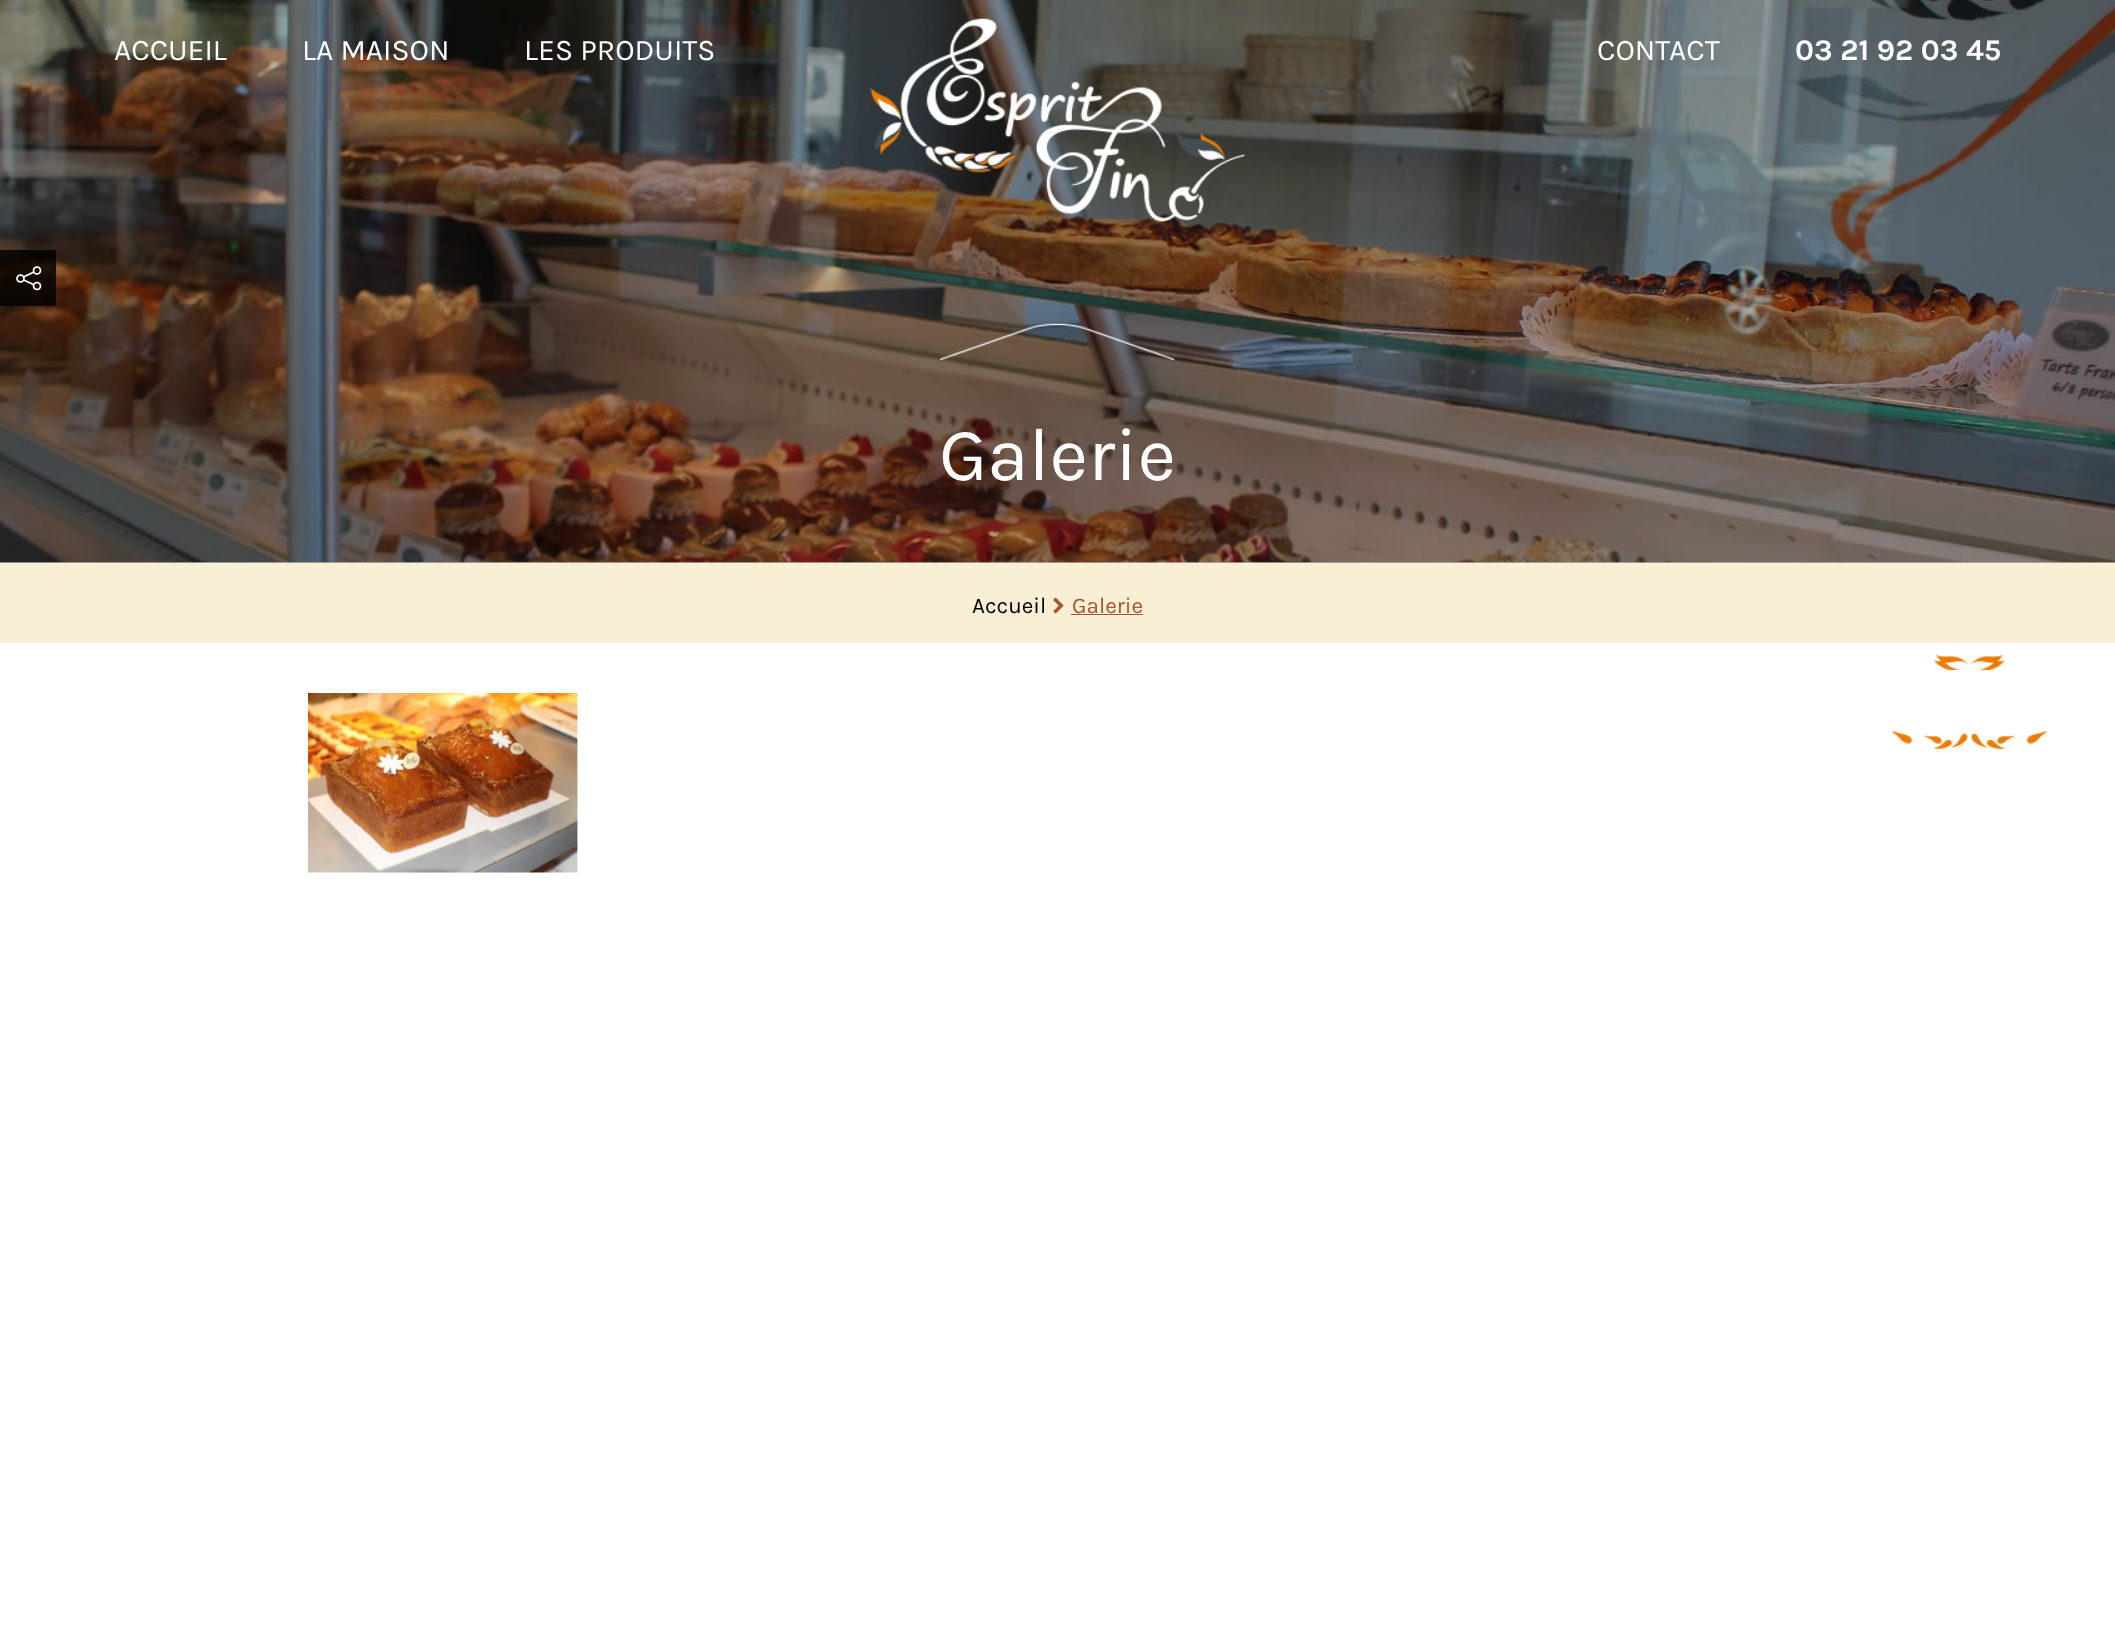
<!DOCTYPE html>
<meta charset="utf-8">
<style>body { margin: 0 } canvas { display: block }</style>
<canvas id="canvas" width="2115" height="1649"></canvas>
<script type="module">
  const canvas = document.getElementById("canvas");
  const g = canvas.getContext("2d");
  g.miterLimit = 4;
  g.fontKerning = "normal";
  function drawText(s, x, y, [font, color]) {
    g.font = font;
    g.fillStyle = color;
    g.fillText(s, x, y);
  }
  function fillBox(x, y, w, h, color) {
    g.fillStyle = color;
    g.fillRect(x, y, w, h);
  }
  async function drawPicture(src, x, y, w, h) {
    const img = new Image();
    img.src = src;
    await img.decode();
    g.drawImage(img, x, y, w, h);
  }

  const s1 = ["30px Karla", "#FFFFFF"];
  const s2 = ["bold 30px Karla", "#FFFFFF"];
  const s3 = ["75px Karla", "#FFFFFF"];
  const s4 = ["22.5px Karla", "#000000"];
  const s5 = ["22.5px Karla", "#A75533"];

  fillBox(0, 0, 2115, 1649, "#FFFFFF");
  fillBox(0, 562, 2115, 1, "#B3B3B3");
  await drawPicture("pic3.png", 0, 0, 2115, 563);
  await drawPicture("pic1.png", 870, 18, 375, 204);
  drawText("ACCUEIL", 114, 60, s1);
  drawText("LA MAISON", 302, 60, s1);
  drawText("LES PRODUITS", 524, 60, s1);
  drawText("CONTACT", 1597, 60, s1);
  drawText("03 21 92 03 45", 1795, 60, s2);
  fillBox(0, 250, 56, 56, "rgba(0, 0, 0, 0.8)");
  await drawPicture("pic2.png", 16, 266, 26, 25);
  await drawPicture("pic4.png", 940, 323, 234, 37);
  drawText("Galerie", 939, 480, s3);
  fillBox(0, 563, 2115, 80, "#F8EFD5");
  drawText("Accueil", 972, 613, s4);
  await drawPicture("pic5.png", 1053, 597, 11, 17);
  drawText("Galerie", 1072, 613, s5);
  fillBox(1071, 614, 72, 1, "#A75533");
  await drawPicture("pic6.png", 308, 693, 270, 180);
  await drawPicture("pic7.png", 1933, 655, 72, 15);
  await drawPicture("pic8.png", 1892, 731, 155, 18);
</script>
